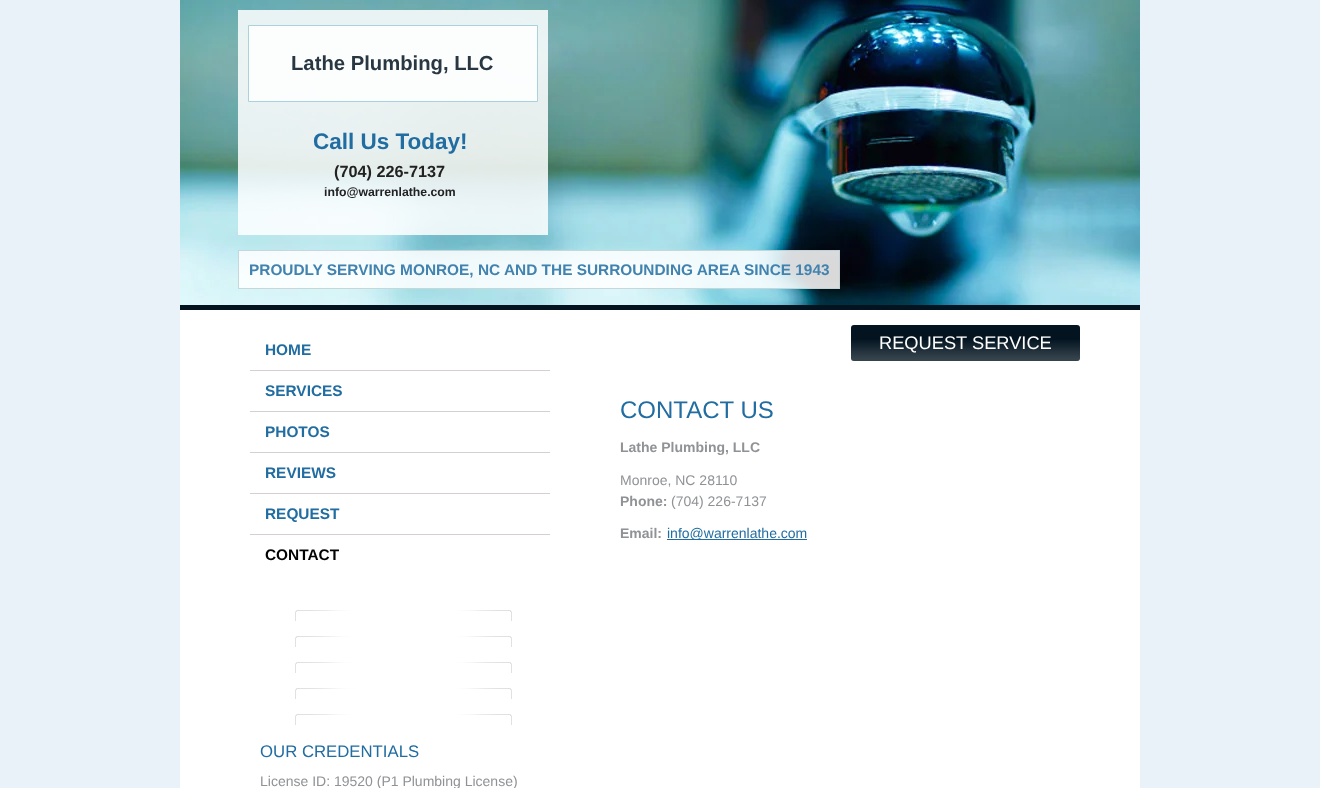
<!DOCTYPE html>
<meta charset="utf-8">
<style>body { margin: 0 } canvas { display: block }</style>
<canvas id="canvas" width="1320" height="788"></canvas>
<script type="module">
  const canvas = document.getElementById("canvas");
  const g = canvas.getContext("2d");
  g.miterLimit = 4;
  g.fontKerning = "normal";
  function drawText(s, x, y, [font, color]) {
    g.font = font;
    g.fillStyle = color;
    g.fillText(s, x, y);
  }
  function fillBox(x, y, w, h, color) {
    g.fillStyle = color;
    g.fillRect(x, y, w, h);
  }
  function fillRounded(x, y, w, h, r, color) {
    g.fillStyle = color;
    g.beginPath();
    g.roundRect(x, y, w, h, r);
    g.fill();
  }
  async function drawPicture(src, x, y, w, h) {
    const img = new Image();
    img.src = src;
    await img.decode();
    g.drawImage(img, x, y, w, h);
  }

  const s1 = ["bold 20.25px Liberation Sans", "#283741"];
  const s2 = ["bold 22.5px Liberation Sans", "#216DA1"];
  const s3 = ["bold 16.25px Liberation Sans", "#222222"];
  const s4 = ["bold 12.25px Liberation Sans", "#222222"];
  const s5 = ["bold 15.4px Liberation Sans", "#4182AF"];
  const s6 = ["18.25px Liberation Sans", "#FFFFFF"];
  const s7 = ["bold 15.4px Liberation Sans", "#216DA1"];
  const s8 = ["bold 15.4px Liberation Sans", "#020202"];
  const s9 = ["16.75px Liberation Sans", "#216DA1"];
  const s10 = ["14px Liberation Sans", "#909295"];
  const s11 = ["24px Liberation Sans", "#216DA1"];
  const s12 = ["bold 14px Liberation Sans", "#909295"];
  const s13 = ["14px Liberation Sans", "#216DA1"];

  fillBox(0, 0, 1320, 788, "#E9F2F9");
  fillBox(180, 310, 960, 478, "#FFFFFF");
  fillBox(180, 305, 960, 5, "#031420");
  await drawPicture("pic1.png", 180, 0, 960, 305);
  fillBox(238, 10, 310, 225, "rgba(255, 255, 255, 0.85)");
  g.beginPath();
  g.rect(248.5, 25.5, 289, 76);
  g.fill();
  g.strokeStyle = "#AAD1DE";
  g.stroke();
  drawText("Lathe Plumbing, LLC", 291, 70, s1);
  drawText("Call Us Today!", 313, 149, s2);
  drawText("(704) 226-7137", 334, 177, s3);
  drawText("info@warrenlathe.com", 324, 196, s4);
  fillBox(238, 250, 602, 39, "rgba(255, 255, 255, 0.85)");
  g.strokeStyle = "rgba(189, 208, 211, 0.85)";
  g.strokeRect(238.5, 250.5, 601, 38);
  drawText("PROUDLY SERVING MONROE, NC", 249, 275, s5);
  drawText("AND THE SURROUNDING AREA SINCE 1943", 504, 275, s5);
  fillRounded(851, 325, 229, 36, 3, "#031420");
  await drawPicture("pic2.png", 851, 340, 229, 21);
  drawText("REQUEST SERVICE", 879, 349, s6);
  drawText("HOME", 265, 355, s7);
  fillBox(250, 370, 300, 1, "#D4D0D1");
  drawText("SERVICES", 265, 396, s7);
  fillBox(250, 411, 300, 1, "#D4D0D1");
  drawText("PHOTOS", 265, 437, s7);
  fillBox(250, 452, 300, 1, "#D4D0D1");
  drawText("REVIEWS", 265, 478, s7);
  fillBox(250, 493, 300, 1, "#D4D0D1");
  drawText("REQUEST", 265, 519, s7);
  fillBox(250, 534, 300, 1, "#D4D0D1");
  drawText("CONTACT", 265, 560, s8);
  await drawPicture("pic3.png", 295, 610, 217, 11);
  await drawPicture("pic3.png", 295, 636, 217, 11);
  await drawPicture("pic3.png", 295, 662, 217, 11);
  await drawPicture("pic3.png", 295, 688, 217, 11);
  await drawPicture("pic3.png", 295, 714, 217, 11);
  drawText("OUR CREDENTIALS", 260, 757, s9);
  drawText("License ID: 19520 (P1 Plumbing License)", 260, 786, s10);
  drawText("CONTACT US", 620, 418, s11);
  drawText("Lathe Plumbing, LLC", 620, 452, s12);
  drawText("Monroe, NC 28110", 620, 485, s10);
  drawText("Phone:", 620, 506, s12);
  drawText("(704) 226-7137", 671, 506, s10);
  drawText("Email:", 620, 538, s12);
  fillBox(667, 539, 140, 1, "#216DA1");
  drawText("info@warrenlathe.com", 667, 538, s13);
</script>
